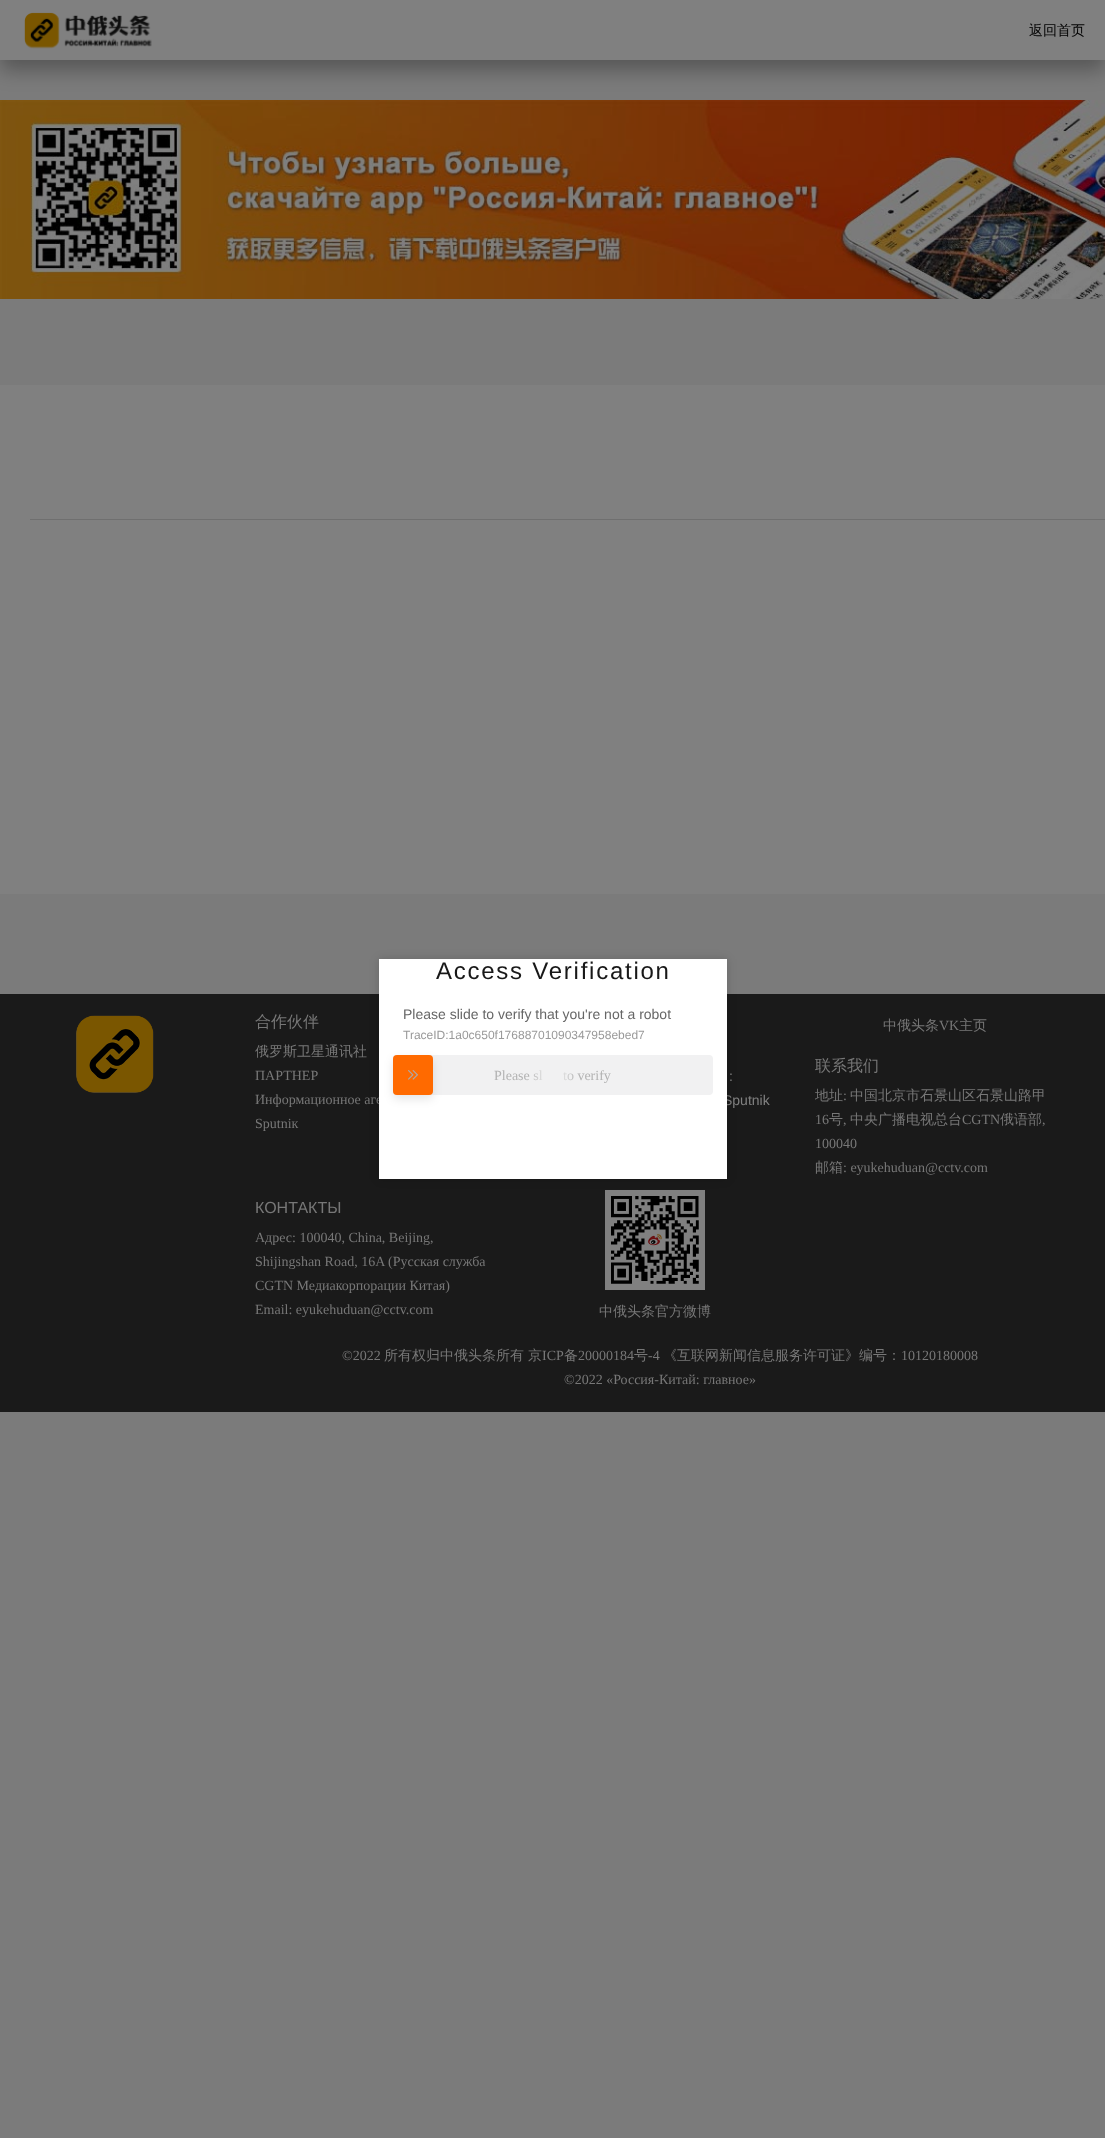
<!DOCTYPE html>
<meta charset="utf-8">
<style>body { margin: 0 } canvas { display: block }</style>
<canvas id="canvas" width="1105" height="2138"></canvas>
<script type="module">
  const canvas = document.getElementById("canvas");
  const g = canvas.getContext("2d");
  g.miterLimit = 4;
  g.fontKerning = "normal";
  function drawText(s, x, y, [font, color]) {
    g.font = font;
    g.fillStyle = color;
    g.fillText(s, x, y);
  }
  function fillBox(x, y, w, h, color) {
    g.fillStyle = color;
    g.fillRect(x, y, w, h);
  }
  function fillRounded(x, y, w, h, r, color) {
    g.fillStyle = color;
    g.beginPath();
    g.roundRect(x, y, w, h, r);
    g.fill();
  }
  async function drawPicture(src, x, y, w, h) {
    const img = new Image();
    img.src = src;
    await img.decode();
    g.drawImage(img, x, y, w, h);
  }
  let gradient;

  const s1 = ["500 14px WenQuanYi Zen Hei", "#000000"];
  const s2 = ["500 16px WenQuanYi Zen Hei", "#777777"];
  const s3 = ["500 14px WenQuanYi Zen Hei", "#777777"];
  const s4 = ["14px Liberation Serif", "#777777"];
  const s5 = ["14px Liberation Sans", "#808080"];
  const s6 = ["16px Liberation Sans", "#777777"];
  const s7 = ["24px Liberation Sans", "#181818"];
  const s8 = ["14px Liberation Sans", "#666666"];
  const s9 = ["12px Liberation Sans", "#999999"];

  fillBox(0, 0, 1105, 2138, "#7B7B7B");
  await drawPicture("pic2.png", 0, 100, 1105, 199);
  g.fillStyle = "rgba(0, 0, 0, 0.3)";
  g.filter = "blur(10px)";
  g.beginPath();
  g.rect(0, 10, 1105, 60);
  g.fill();
  g.filter = "none";
  fillBox(0, 0, 1105, 60, "#808080");
  await drawPicture("pic1.png", 24, 12, 128, 37);
  drawText("返回首页", 1029, 35, s1);
  fillBox(0, 385, 1105, 509, "#808080");
  fillBox(30, 519, 1075, 1, "#6F6F6F");
  fillBox(0, 994, 1105, 418, "#1A1A1A");
  await drawPicture("pic3.png", 76, 1015, 78, 78);
  drawText("合作伙伴", 255, 1027, s2);
  drawText("俄罗斯卫星通讯社", 255, 1056, s3);
  drawText("ПАРТНЕР", 255, 1080, s4);
  drawText("Информационное аге", 255, 1104, s4);
  drawText("Sputniк", 255, 1128, s4);
  drawText("中俄头条", 883, 1030, s3);
  drawText("VK", 939, 1030, s4);
  drawText("主页", 959, 1030, s3);
  drawText(":", 729, 1081, s5);
  drawText("Sputnik", 723, 1105, s5);
  drawText("联系我们", 815, 1071, s2);
  drawText("地址", 815, 1100, s3);
  drawText(":", 843, 1100, s4);
  drawText("中国北京市石景山区石景山路甲", 850, 1100, s3);
  drawText("16", 815, 1124, s4);
  drawText("号", 829, 1124, s3);
  drawText(",", 843, 1124, s4);
  drawText("中央广播电视总台", 850, 1124, s3);
  drawText("CGTN", 962, 1124, s4);
  drawText("俄语部", 1000, 1124, s3);
  drawText(",", 1042, 1124, s4);
  drawText("100040", 815, 1148, s4);
  drawText("邮箱", 815, 1172, s3);
  drawText(": eyukehuduan@cctv.com", 843, 1172, s4);
  drawText("КОНТАКТЫ", 255, 1213, s6);
  drawText("Адрес: 100040, China, Beijing,", 255, 1242, s4);
  drawText("Shijingshan Road, 16A (Русская служба", 255, 1266, s4);
  drawText("СGTN Медиакорпорации Китая)", 255, 1290, s4);
  drawText("Email: eyukehuduan@cctv.com", 255, 1314, s4);
  await drawPicture("pic4.png", 605, 1190, 100, 100);
  drawText("中俄头条官方微博", 599, 1316, s3);
  drawText("©2022", 342, 1360, s4);
  drawText("所有权归中俄头条所有", 384, 1360, s3);
  drawText("京", 528, 1360, s3);
  drawText("ICP", 542, 1360, s4);
  drawText("备", 564, 1360, s3);
  drawText("20000184", 578, 1360, s4);
  drawText("号", 634, 1360, s3);
  drawText("-4", 648, 1360, s4);
  drawText("《互联网新闻信息服务许可证》编号：", 663, 1360, s3);
  drawText("10120180008", 901, 1360, s4);
  drawText("©2022 «Россия-Китай: главное»", 564, 1384, s4);
  g.fillStyle = "rgba(0, 0, 0, 0.15)";
  g.filter = "blur(5px)";
  g.beginPath();
  g.rect(379, 959, 348, 220);
  g.fill();
  g.filter = "none";
  fillBox(379, 959, 348, 220, "#FFFFFF");
  g.letterSpacing = "1.75px";
  drawText("Access Verification", 436, 979, s7);
  g.letterSpacing = "0px";
  drawText("Please slide to verify that you're not a robot", 403, 1019, s8);
  drawText("TraceID:1a0c650f17688701090347958ebed7", 403, 1039, s9);
  fillRounded(393, 1055, 320, 40, 4, "#F1F1F2");
  g.fillStyle = "rgba(0, 0, 0, 0.1)";
  g.filter = "blur(5px)";
  g.beginPath();
  g.roundRect(393, 1059, 40, 40, 4);
  g.fill();
  g.filter = "none";
  fillRounded(393, 1055, 40, 40, 4, "#FF6A00");
  await drawPicture("pic5.png", 408, 1070, 11, 10);
  g.font = "14px Liberation Serif";
  gradient = g.createLinearGradient(433, 1068, 673, 1068);
  gradient.addColorStop(0, "#B3B3B3");
  gradient.addColorStop(0.4, "#B3B3B3");
  gradient.addColorStop(0.5, "#FFFFFF");
  gradient.addColorStop(0.6, "#B3B3B3");
  gradient.addColorStop(1, "#B3B3B3");
  g.fillStyle = gradient;
  g.fillText("Please sl", 494, 1080);
  g.fillText("to verify", 563, 1080);
</script>
